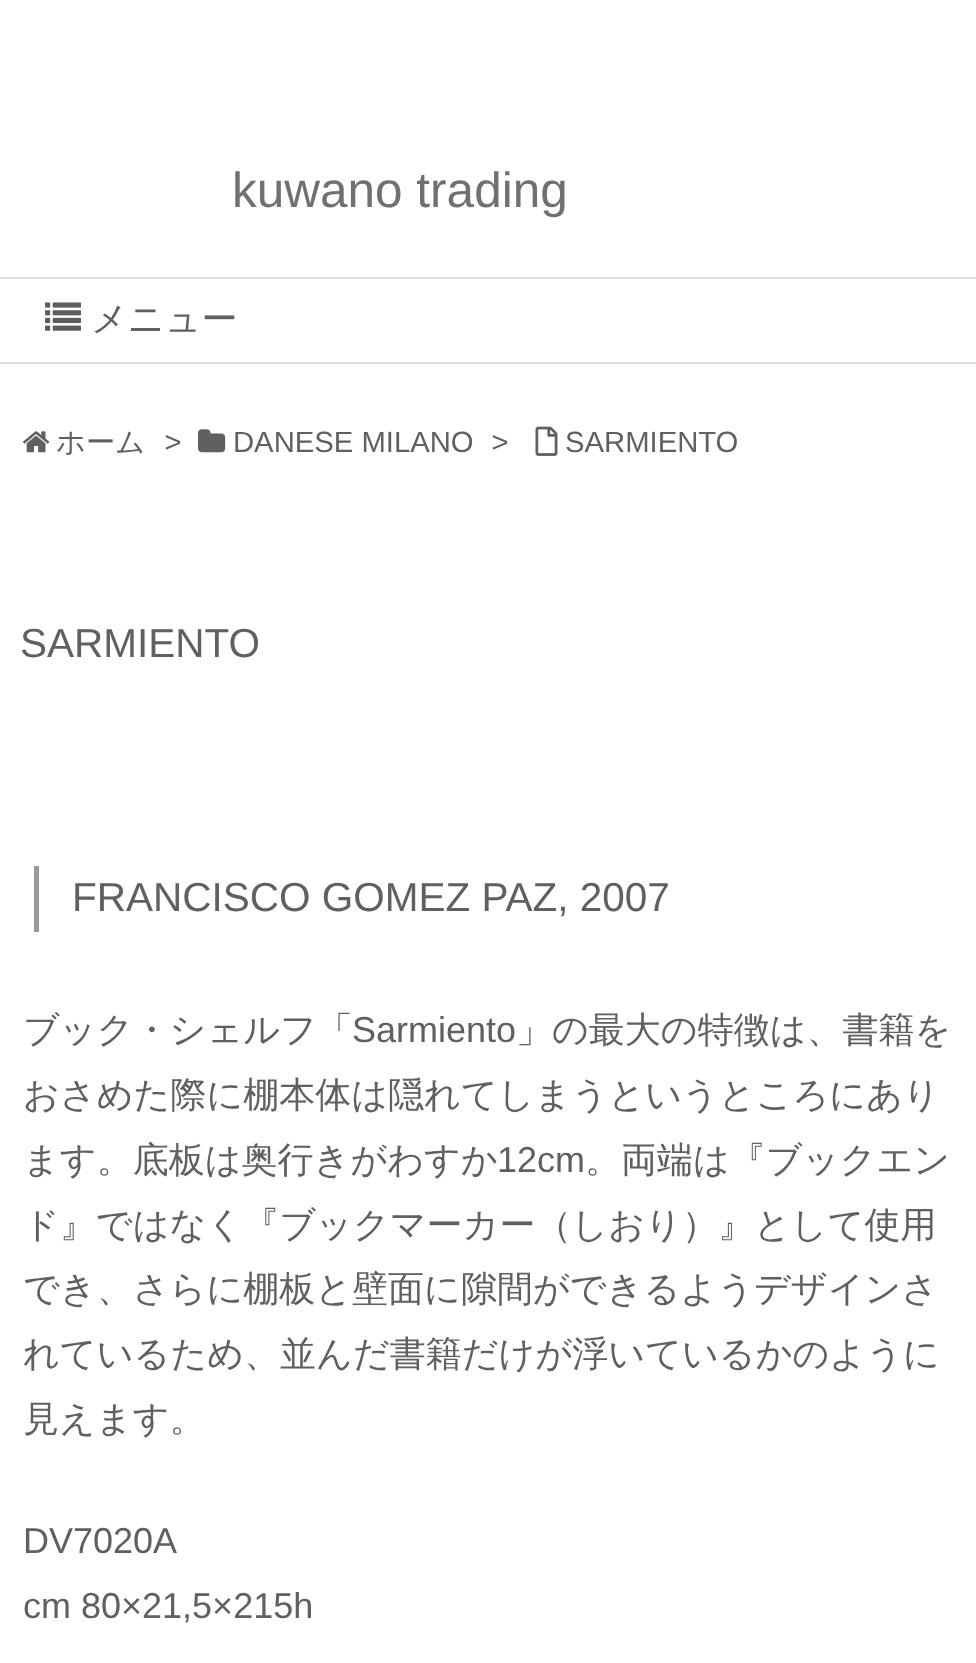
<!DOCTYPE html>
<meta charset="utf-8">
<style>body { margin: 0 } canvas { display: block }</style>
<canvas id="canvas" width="976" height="1663"></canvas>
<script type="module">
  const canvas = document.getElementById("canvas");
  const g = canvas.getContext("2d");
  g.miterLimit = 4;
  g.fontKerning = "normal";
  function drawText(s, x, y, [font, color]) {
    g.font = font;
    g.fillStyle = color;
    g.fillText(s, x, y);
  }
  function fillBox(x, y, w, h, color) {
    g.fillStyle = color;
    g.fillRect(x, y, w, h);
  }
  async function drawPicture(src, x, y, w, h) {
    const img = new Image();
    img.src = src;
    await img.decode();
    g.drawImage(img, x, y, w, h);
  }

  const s1 = ["49.5px Liberation Sans", "#707070"];
  const s2 = ["500 36px WenQuanYi Zen Hei", "#606060"];
  const s3 = ["500 29.25px WenQuanYi Zen Hei", "#606060"];
  const s4 = ["italic 29.25px Liberation Sans", "#606060"];
  const s5 = ["29.25px Liberation Sans", "#606060"];
  const s6 = ["40.5px Liberation Sans", "#606060"];
  const s7 = ["36px Liberation Sans", "#606060"];

  fillBox(0, 0, 976, 1663, "#FFFFFF");
  drawText("kuwano trading", 232, 207, s1);
  fillBox(0, 277, 976, 2, "#DDDDDD");
  fillBox(0, 362, 976, 2, "#DDDDDD");
  await drawPicture("pic1.png", 45, 302, 36, 29);
  drawText("メニュー", 91, 331, s2);
  await drawPicture("pic2.png", 23, 431, 27, 22);
  drawText("ホーム", 56, 452, s3);
  drawText(">", 164, 452, s4);
  await drawPicture("pic3.png", 198, 429, 28, 24);
  drawText("DANESE MILANO", 233, 452, s5);
  drawText(">", 491, 452, s4);
  await drawPicture("pic4.png", 535, 426, 23, 30);
  drawText("SARMIENTO", 565, 452, s5);
  drawText("SARMIENTO", 20, 657, s6);
  fillBox(34, 866, 5, 66, "#999999");
  drawText("FRANCISCO GOMEZ PAZ, 2007", 72, 911, s6);
  drawText("ブック・シェルフ「", 23, 1042, s2);
  drawText("Sarmiento", 352, 1042, s7);
  drawText("」の最大の特徴は、書籍を", 516, 1042, s2);
  drawText("おさめた際に棚本体は隠れてしまうというところにあり", 23, 1107, s2);
  drawText("ます。底板は奥行きがわすか", 23, 1172, s2);
  drawText("12cm", 497, 1172, s7);
  drawText("。両端は『ブックエン", 585, 1172, s2);
  drawText("ド』ではなく『ブックマーカー（しおり）』として使用", 23, 1237, s2);
  drawText("でき、さらに棚板と壁面に隙間ができるようデザインさ", 23, 1301, s2);
  drawText("れているため、並んだ書籍だけが浮いているかのように", 23, 1366, s2);
  drawText("見えます。", 23, 1431, s2);
  drawText("DV7020A", 23, 1553, s7);
  drawText("cm 80×21,5×215h", 23, 1618, s7);
</script>
